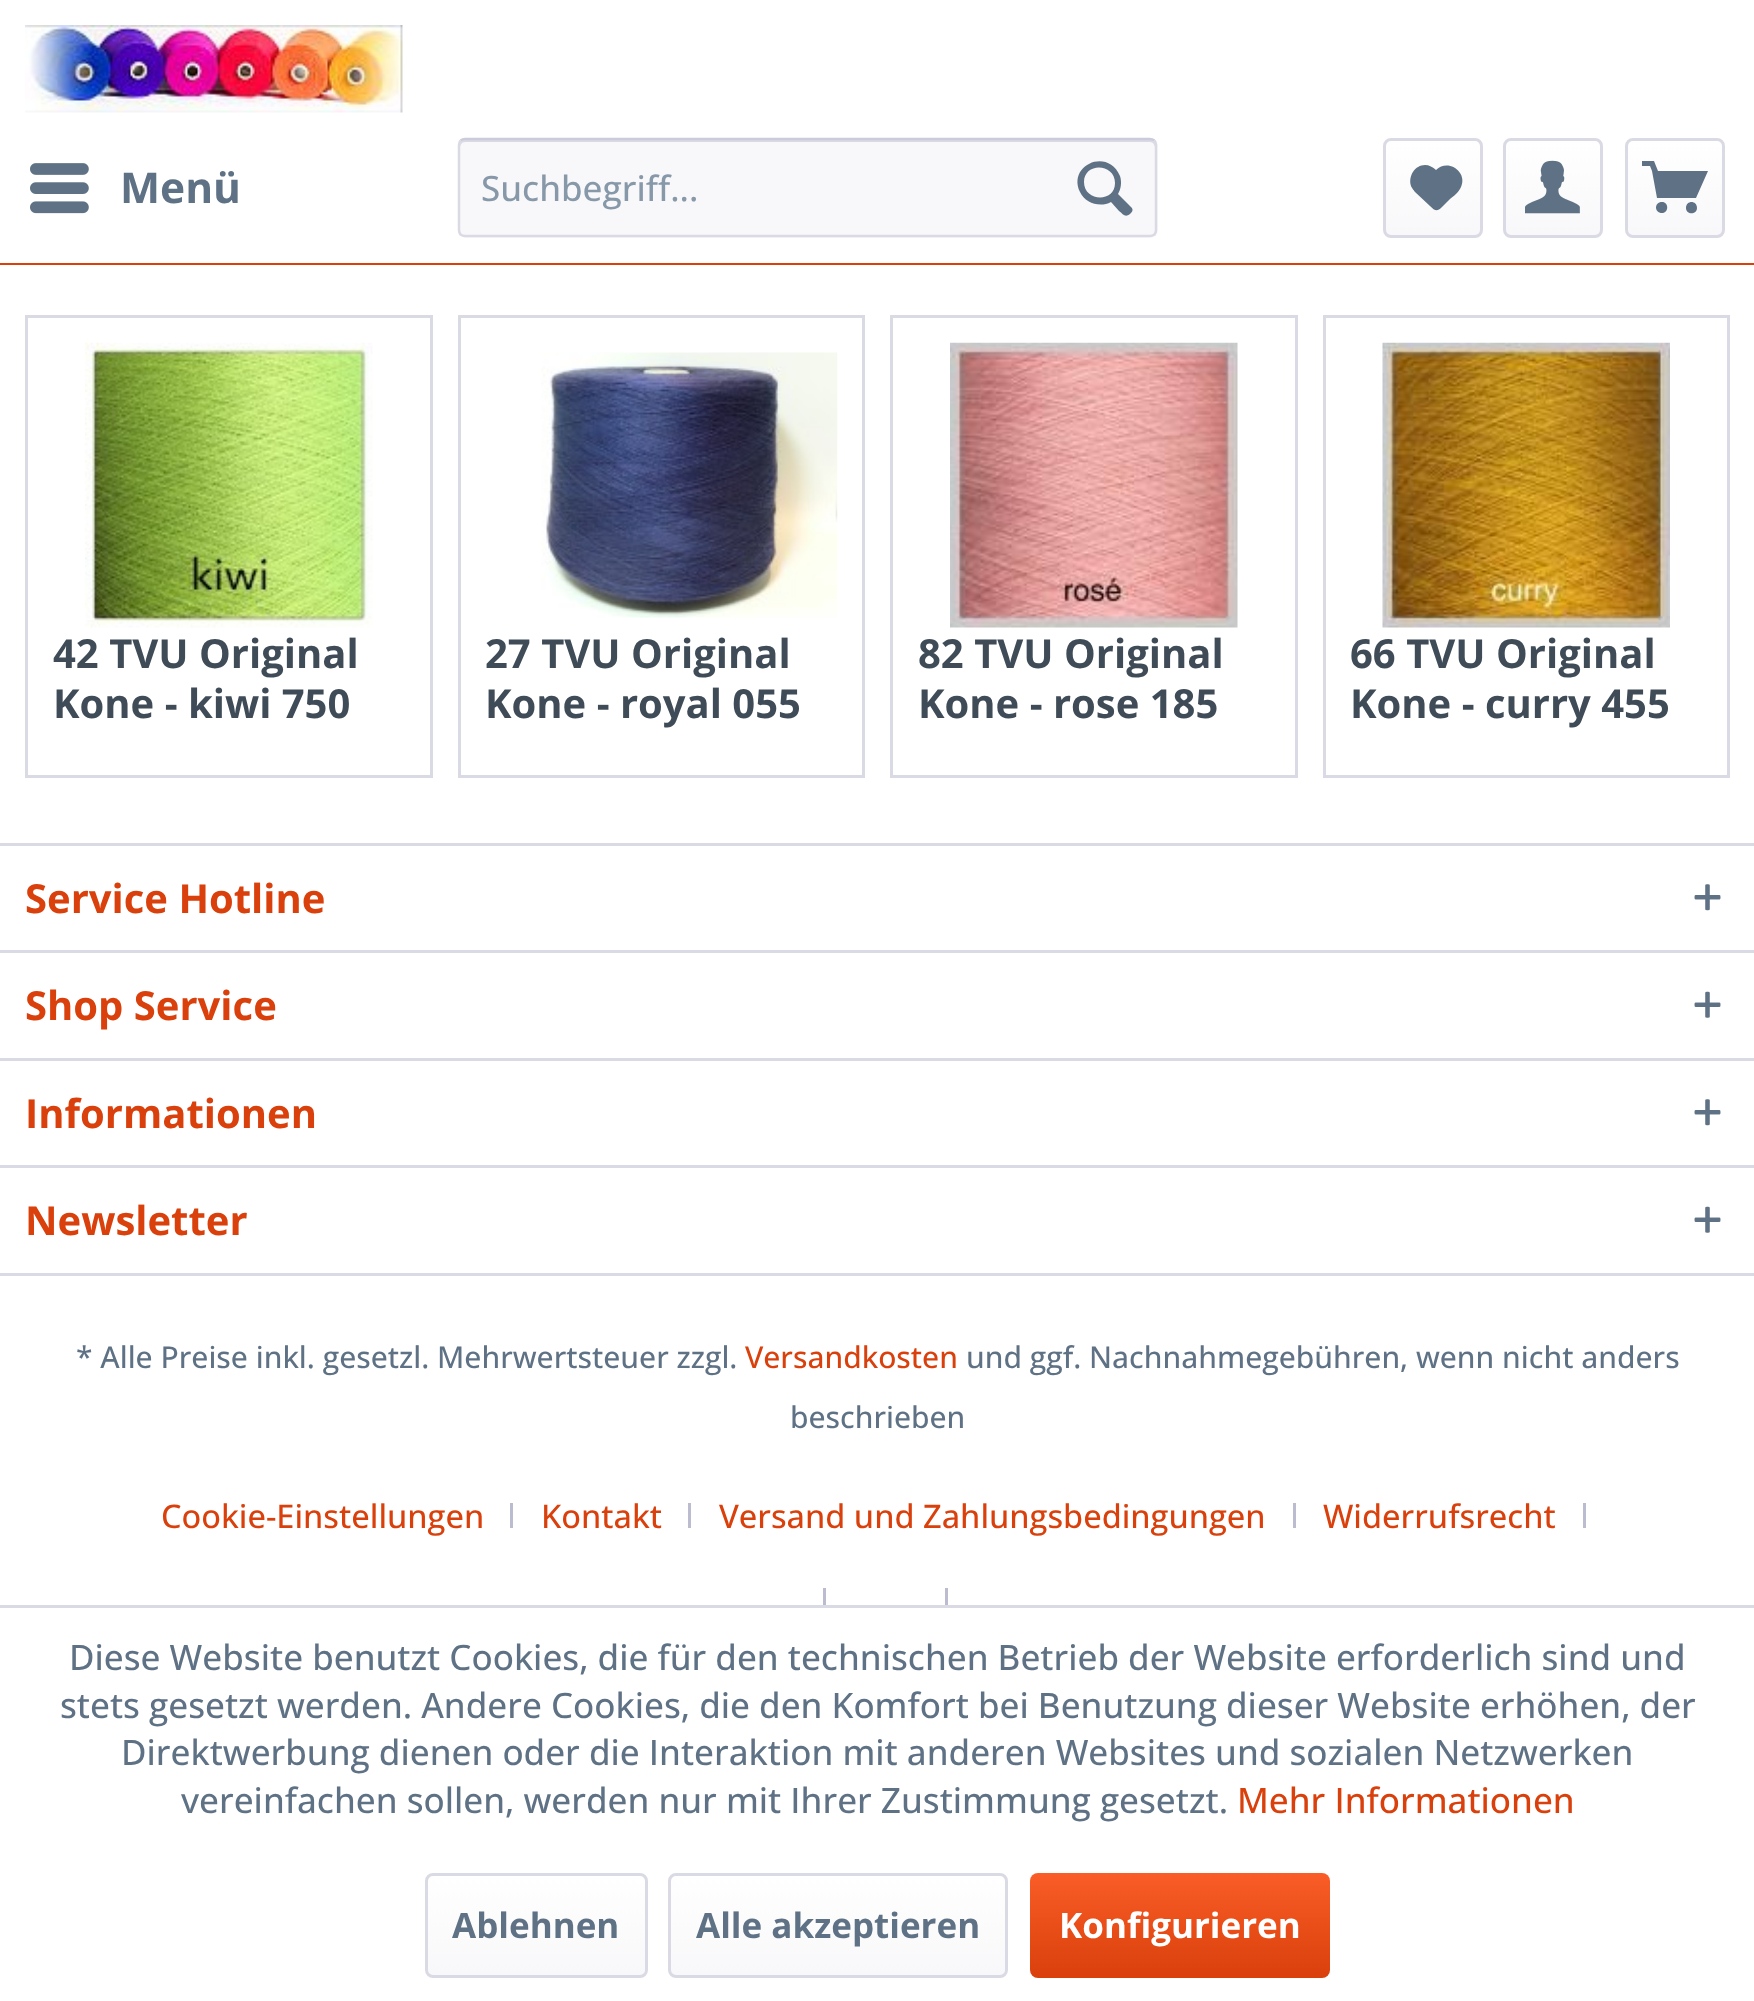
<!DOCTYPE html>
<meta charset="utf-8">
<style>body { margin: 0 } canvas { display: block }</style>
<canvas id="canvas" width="1754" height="2001"></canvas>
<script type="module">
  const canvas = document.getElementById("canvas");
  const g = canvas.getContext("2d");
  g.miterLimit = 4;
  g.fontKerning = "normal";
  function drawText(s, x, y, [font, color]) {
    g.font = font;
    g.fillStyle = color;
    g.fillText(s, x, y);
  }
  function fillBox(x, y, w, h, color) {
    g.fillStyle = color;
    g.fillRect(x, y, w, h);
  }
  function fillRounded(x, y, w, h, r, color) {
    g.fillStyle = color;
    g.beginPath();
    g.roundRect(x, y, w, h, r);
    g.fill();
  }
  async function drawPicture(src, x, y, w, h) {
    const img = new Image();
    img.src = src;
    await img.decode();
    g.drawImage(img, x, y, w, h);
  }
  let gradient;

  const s1 = ["bold 42.5px Open Sans", "#5F7285"];
  const s2 = ["500 35px Open Sans", "#8798A9"];
  const s3 = ["bold 40px Open Sans", "#3F4C58"];
  const s4 = ["bold 40px Open Sans", "#D9400B"];
  const s5 = ["500 30px Open Sans", "#5F7285"];
  const s6 = ["500 30px Open Sans", "#D9400B"];
  const s7 = ["500 32.5px Open Sans", "#D9400B"];
  const s8 = ["500 35px Open Sans", "#5F7285"];
  const s9 = ["500 35px Open Sans", "#D9400B"];
  const s10 = ["bold 35px Open Sans", "#5F7285"];
  const s11 = ["bold 35px Open Sans", "#FFFFFF"];

  fillBox(0, 0, 1754, 2001, "#FFFFFF");
  fillBox(0, 263, 1754, 2, "#D9400B");
  await drawPicture("pic1.png", 25, 25, 378, 88);
  await drawPicture("pic2.png", 30, 163, 59, 51);
  drawText("Menü", 120, 203, s1);
  fillRounded(458, 138, 700, 100, 8, "#F8F8FA");
  g.fillStyle = "#DADAE5";
  g.beginPath();
  g.moveTo(465, 142);
  g.lineTo(1150, 142);
  g.bezierCurveTo(1153, 142, 1155, 145, 1155, 148);
  g.lineTo(1155, 145);
  g.bezierCurveTo(1155, 142, 1153, 140, 1150, 140);
  g.lineTo(465, 140);
  g.bezierCurveTo(462, 140, 460, 142, 460, 145);
  g.lineTo(460, 148);
  g.bezierCurveTo(460, 145, 462, 142, 465, 142);
  g.closePath();
  g.fill();
  g.beginPath();
  g.moveTo(460.5, 140.5);
  g.bezierCurveTo(462, 139.5, 463.5, 139, 465, 139);
  g.lineTo(1150, 139);
  g.bezierCurveTo(1151.5, 139, 1153, 139.5, 1154.5, 140.5);
  g.strokeStyle = "#CBCBDB";
  g.lineWidth = 2.5;
  g.stroke();
  g.beginPath();
  g.moveTo(1154.5, 140.5);
  g.bezierCurveTo(1155.5, 142, 1156, 143.5, 1156, 145);
  g.lineTo(1156, 230);
  g.bezierCurveTo(1156, 231.5, 1155.5, 233, 1154.5, 234.5);
  g.bezierCurveTo(1153, 235.5, 1151.5, 236, 1150, 236);
  g.lineTo(465, 236);
  g.bezierCurveTo(463.5, 236, 462, 235.5, 460.5, 234.5);
  g.bezierCurveTo(459.5, 233, 459, 231.5, 459, 230);
  g.lineTo(459, 145);
  g.bezierCurveTo(459, 143.5, 459.5, 142, 460.5, 140.5);
  g.strokeStyle = "#DADAE5";
  g.stroke();
  drawText("Suchbegriff...", 481, 201, s2);
  g.fillStyle = "#5F7285";
  g.beginPath();
  g.moveTo(1131, 207);
  g.lineTo(1118, 194);
  g.bezierCurveTo(1121, 189, 1122, 182, 1120, 176);
  g.bezierCurveTo(1108, 147, 1067, 165, 1080, 192);
  g.bezierCurveTo(1085, 203, 1100, 208, 1111, 202);
  g.lineTo(1119, 211);
  g.bezierCurveTo(1123, 214, 1125, 218, 1130, 214);
  g.bezierCurveTo(1132, 212, 1134, 210, 1131, 207);
  g.closePath();
  g.moveTo(1084, 182);
  g.bezierCurveTo(1084, 162, 1115, 163, 1115, 183);
  g.bezierCurveTo(1115, 203, 1084, 202, 1084, 182);
  g.closePath();
  g.fill();
  gradient = g.createLinearGradient(1433, 140, 1433, 235);
  gradient.addColorStop(0, "#FFFFFF");
  gradient.addColorStop(1, "#F8F8FA");
  g.fillStyle = gradient;
  g.beginPath();
  g.roundRect(1385, 140, 95, 95, 5);
  g.fill();
  g.beginPath();
  g.roundRect(1384.5, 139.5, 97, 97, 6.5);
  g.lineWidth = 3;
  g.stroke();
  g.fillStyle = "#5F7285";
  g.beginPath();
  g.moveTo(1425, 165);
  g.bezierCurveTo(1415, 165, 1408, 176, 1411, 186);
  g.bezierCurveTo(1411, 187, 1415, 192, 1415, 192);
  g.lineTo(1430, 206);
  g.bezierCurveTo(1435, 211, 1437, 212, 1442, 207);
  g.lineTo(1450, 199);
  g.bezierCurveTo(1454, 196, 1459, 192, 1461, 187);
  g.bezierCurveTo(1468, 172, 1448, 158, 1436, 170);
  g.bezierCurveTo(1433, 167, 1429, 165, 1425, 165);
  g.closePath();
  g.fill();
  gradient = g.createLinearGradient(1553, 140, 1553, 235);
  gradient.addColorStop(0, "#FFFFFF");
  gradient.addColorStop(1, "#F8F8FA");
  g.fillStyle = gradient;
  g.beginPath();
  g.roundRect(1505, 140, 95, 95, 5);
  g.fill();
  g.beginPath();
  g.roundRect(1504.5, 139.5, 97, 97, 6.5);
  g.stroke();
  await drawPicture("pic3.png", 1525, 160, 55, 54);
  gradient = g.createLinearGradient(1675, 140, 1675, 235);
  gradient.addColorStop(0, "#FFFFFF");
  gradient.addColorStop(1, "#F8F8FA");
  g.fillStyle = gradient;
  g.beginPath();
  g.roundRect(1628, 140, 95, 95, 5);
  g.fill();
  g.beginPath();
  g.roundRect(1626.5, 139.5, 97, 97, 6.5);
  g.stroke();
  g.fillStyle = "#5F7285";
  g.beginPath();
  g.moveTo(1657, 198);
  g.lineTo(1696, 198);
  g.lineTo(1708, 171);
  g.lineTo(1658, 171);
  g.lineTo(1654, 161);
  g.lineTo(1642, 161);
  g.lineTo(1642, 166);
  g.lineTo(1650, 166);
  g.lineTo(1652, 171);
  g.closePath();
  g.moveTo(1662, 202);
  g.bezierCurveTo(1654, 202, 1654, 213, 1662, 213);
  g.bezierCurveTo(1669, 213, 1669, 202, 1662, 202);
  g.closePath();
  g.moveTo(1697, 208);
  g.bezierCurveTo(1697, 215, 1686, 215, 1686, 208);
  g.bezierCurveTo(1686, 200, 1697, 200, 1697, 208);
  g.closePath();
  g.fill();
  g.strokeRect(26.5, 316.5, 405, 460);
  await drawPicture("pic4.png", 85, 342, 288, 286);
  drawText("42 TVU Original", 53, 668, s3);
  drawText("Kone - kiwi 750", 53, 718, s3);
  g.strokeRect(459.5, 316.5, 404, 460);
  await drawPicture("pic5.png", 541, 352, 297, 266);
  drawText("27 TVU Original", 485, 668, s3);
  drawText("Kone - royal 055", 485, 718, s3);
  g.strokeRect(891.5, 316.5, 405, 460);
  await drawPicture("pic6.png", 950, 342, 288, 286);
  drawText("82 TVU Original", 918, 668, s3);
  drawText("Kone - rose 185", 918, 718, s3);
  g.strokeRect(1324.5, 316.5, 404, 460);
  await drawPicture("pic7.png", 1382, 342, 288, 286);
  drawText("66 TVU Original", 1350, 668, s3);
  drawText("Kone - curry 455", 1350, 718, s3);
  fillBox(0, 843, 1754, 3, "#DADAE5");
  drawText("Service Hotline", 25, 913, s4);
  await drawPicture("pic8.png", 1694, 884, 27, 27);
  fillBox(0, 950, 1754, 3, "#DADAE5");
  drawText("Shop Service", 25, 1020, s4);
  await drawPicture("pic9.png", 1694, 991, 27, 27);
  fillBox(0, 1058, 1754, 3, "#DADAE5");
  drawText("Informationen", 25, 1128, s4);
  await drawPicture("pic8.png", 1694, 1099, 27, 27);
  fillBox(0, 1165, 1754, 3, "#DADAE5");
  fillBox(0, 1273, 1754, 3, "#DADAE5");
  drawText("Newsletter", 25, 1235, s4);
  await drawPicture("pic9.png", 1694, 1206, 27, 27);
  drawText("* Alle Preise inkl. gesetzl. Mehrwertsteuer zzgl.", 76, 1368, s5);
  drawText("Versandkosten", 745, 1368, s6);
  drawText("und ggf. Nachnahmegebühren, wenn nicht anders", 966, 1368, s5);
  drawText("beschrieben", 790, 1428, s5);
  drawText("Cookie-Einstellungen", 161, 1528, s7);
  fillBox(510, 1503, 3, 25, "#BCBCD0");
  drawText("Kontakt", 541, 1528, s7);
  fillBox(688, 1503, 3, 25, "#BCBCD0");
  drawText("Versand und Zahlungsbedingungen", 719, 1528, s7);
  fillBox(1293, 1503, 3, 25, "#BCBCD0");
  drawText("Widerrufsrecht", 1323, 1528, s7);
  fillBox(1583, 1503, 3, 25, "#BCBCD0");
  fillBox(823, 1588, 3, 25, "#BCBCD0");
  fillBox(945, 1588, 3, 25, "#BCBCD0");
  fillBox(823, 1608, 125, 5, "#FFFFFF");
  fillBox(0, 1605, 1754, 3, "#DADAE5");
  drawText("Diese Website benutzt Cookies, die für den technischen Betrieb der Website erforderlich sind und", 69, 1670, s8);
  drawText("stets gesetzt werden. Andere Cookies, die den Komfort bei Benutzung dieser Website erhöhen, der", 60, 1718, s8);
  drawText("Direktwerbung dienen oder die Interaktion mit anderen Websites und sozialen Netzwerken", 121, 1765, s8);
  drawText("vereinfachen sollen, werden nur mit Ihrer Zustimmung gesetzt.", 181, 1813, s8);
  drawText("Mehr Informationen", 1237, 1813, s9);
  gradient = g.createLinearGradient(536, 1875, 536, 1975);
  gradient.addColorStop(0, "#FFFFFF");
  gradient.addColorStop(1, "#F8F8FA");
  g.fillStyle = gradient;
  g.beginPath();
  g.roundRect(428, 1875, 217, 100, 5);
  g.fill();
  g.beginPath();
  g.roundRect(426.5, 1874.5, 220, 102, 6.5);
  g.stroke();
  drawText("Ablehnen", 452, 1938, s10);
  gradient = g.createLinearGradient(838, 1875, 838, 1975);
  gradient.addColorStop(0, "#FFFFFF");
  gradient.addColorStop(1, "#F8F8FA");
  g.fillStyle = gradient;
  g.beginPath();
  g.roundRect(670, 1875, 335, 100, 5);
  g.fill();
  g.beginPath();
  g.roundRect(669.5, 1874.5, 337, 102, 6.5);
  g.stroke();
  drawText("Alle akzeptieren", 696, 1938, s10);
  gradient = g.createLinearGradient(1180, 1873, 1180, 1978);
  gradient.addColorStop(0, "#FA5D27");
  gradient.addColorStop(1, "#D9400B");
  g.fillStyle = gradient;
  g.beginPath();
  g.roundRect(1030, 1873, 300, 105, 8);
  g.fill();
  drawText("Konfigurieren", 1059, 1938, s11);
</script>
